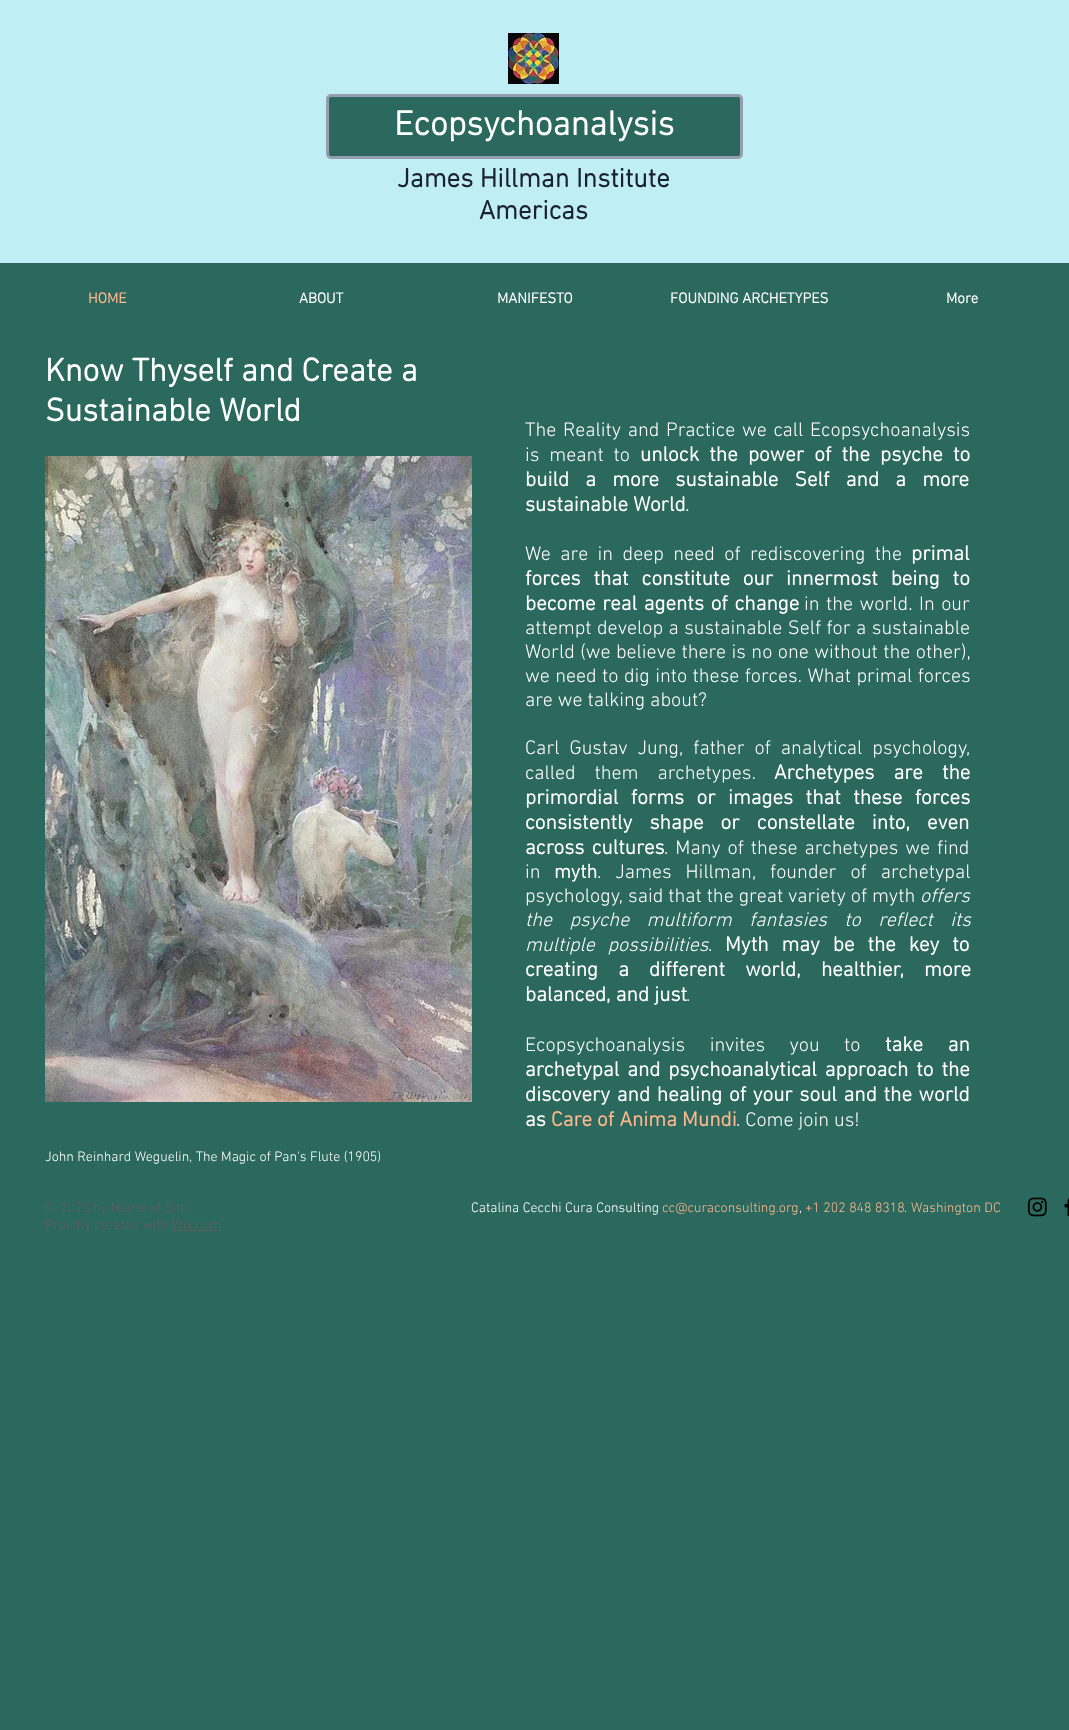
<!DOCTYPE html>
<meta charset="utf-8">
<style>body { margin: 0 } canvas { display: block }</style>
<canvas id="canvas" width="1069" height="1730"></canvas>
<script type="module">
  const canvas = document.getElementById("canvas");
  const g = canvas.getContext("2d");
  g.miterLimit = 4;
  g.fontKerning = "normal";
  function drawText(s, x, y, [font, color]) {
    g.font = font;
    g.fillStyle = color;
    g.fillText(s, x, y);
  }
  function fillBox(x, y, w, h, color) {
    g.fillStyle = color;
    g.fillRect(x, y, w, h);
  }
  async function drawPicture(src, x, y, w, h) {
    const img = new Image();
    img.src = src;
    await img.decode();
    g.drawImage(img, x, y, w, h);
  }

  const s1 = ["bold 35px 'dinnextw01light'", "#FFFFFF"];
  const s2 = ["bold 27px 'dinnextw01light'", "#1B222F"];
  const s3 = ["bold 15px 'dinnextw01light'", "#FEB88D"];
  const s4 = ["bold 15px 'dinnextw01light'", "#FFFFFF"];
  const s5 = ["bold 33px 'dinnextw01light'", "#FFFFFF"];
  const s6 = ["300 20px 'dinnextw01light'", "#FFFFFF"];
  const s7 = ["bold 21px 'dinnextw01light'", "#FFFFFF"];
  const s8 = ["300 21px 'dinnextw01light'", "#FFFFFF"];
  const s9 = ["bold 20px 'dinnextw01light'", "#FFFFFF"];
  const s10 = ["italic 300 20px 'dinnextw01light'", "#FFFFFF"];
  const s11 = ["bold 21px 'dinnextw01light'", "#FEB88D"];
  const s12 = ["300 14px 'dinnextw01light'", "#FFFFFF"];
  const s13 = ["300 14px 'dinnextw01light'", "#5F5E61"];
  const s14 = ["300 14px 'dinnextw01light'", "#FEB88D"];

  fillBox(0, 0, 1069, 1730, "#2B685D");
  fillBox(0, 0, 1069, 263, "#C0EEF5");
  await drawPicture("pic1.png", 508, 33, 51, 51);
  g.fillStyle = "#2B685D";
  g.beginPath();
  g.roundRect(327.5, 95.5, 414, 62, 3.5);
  g.fill();
  g.strokeStyle = "#959EAE";
  g.lineWidth = 3;
  g.stroke();
  drawText("Ecopsychoanalysis", 394, 135, s1);
  drawText("James Hillman Institute", 397, 187, s2);
  drawText("Americas", 479, 219, s2);
  drawText("HOME", 88, 303, s3);
  drawText("ABOUT", 299, 303, s4);
  drawText("MANIFESTO", 497, 303, s4);
  drawText("FOUNDING ARCHETYPES", 670, 303, s4);
  drawText("More", 946, 303, s4);
  drawText("Know Thyself and Create a", 45, 381, s5);
  drawText("Sustainable World", 45, 421, s5);
  await drawPicture("pic2.png", 45, 456, 427, 646);
  g.wordSpacing = "1.75px";
  drawText("The Reality and Practice we call Ecopsychoanalysis", 525, 436, s6);
  g.wordSpacing = "5px";
  drawText("is meant to", 525, 461, s6);
  drawText("unlock the power of the psyche to", 640, 461, s7);
  g.wordSpacing = "11px";
  drawText("build a more sustainable Self and a more", 525, 486, s7);
  g.wordSpacing = "0px";
  drawText("sustainable World", 525, 511, s7);
  drawText(".", 685, 511, s8);
  g.wordSpacing = "4.5px";
  drawText("We are in deep need of rediscovering the", 525, 560, s6);
  g.wordSpacing = "0px";
  drawText("primal", 911, 560, s7);
  g.wordSpacing = "7.75px";
  drawText("forces that constitute our innermost being to", 525, 585, s7);
  g.wordSpacing = "1.5px";
  drawText("become real agents of change", 525, 610, s7);
  drawText("in the world.", 804, 610, s6);
  drawText("In our", 919, 610, s6);
  g.wordSpacing = "0.5px";
  drawText("attempt develop a sustainable Self for a sustainable", 525, 634, s6);
  drawText("World (we believe there is no one without the other),", 525, 658, s6);
  drawText("we need to dig into these forces. What primal forces", 525, 682, s6);
  g.wordSpacing = "0px";
  drawText("are we talking about?", 525, 706, s6);
  g.wordSpacing = "5px";
  drawText("Carl Gustav Jung, father of analytical psychology,", 525, 754, s6);
  g.wordSpacing = "14px";
  drawText("called them archetypes.", 525, 779, s6);
  drawText("Archetypes are the", 774, 779, s7);
  g.wordSpacing = "7.25px";
  drawText("primordial forms or images that these forces", 525, 804, s7);
  g.wordSpacing = "12px";
  drawText("consistently shape or constellate into, even", 525, 829, s7);
  g.wordSpacing = "2px";
  drawText("across cultures", 525, 854, s7);
  drawText(". Many of these archetypes we find", 664, 854, s6);
  g.wordSpacing = "0px";
  drawText("in", 525, 878, s6);
  drawText("myth", 554, 878, s9);
  g.wordSpacing = "9px";
  drawText(". James Hillman, founder of archetypal", 597, 878, s6);
  g.wordSpacing = "0px";
  drawText("psychology, said that the great variety of myth", 525, 902, s6);
  drawText("offers", 920, 902, s10);
  g.wordSpacing = "12.5px";
  drawText("the psyche multiform fantasies to reflect its", 525, 926, s10);
  g.wordSpacing = "7.75px";
  drawText("multiple possibilities", 525, 951, s10);
  g.wordSpacing = "0px";
  drawText(".", 708, 951, s6);
  g.wordSpacing = "7.75px";
  drawText("Myth may be the key to", 725, 951, s7);
  g.wordSpacing = "15px";
  drawText("creating a different world, healthier, more", 525, 976, s7);
  g.wordSpacing = "0px";
  drawText("balanced, and just", 525, 1001, s7);
  drawText(".", 686, 1001, s6);
  g.wordSpacing = "19.5px";
  drawText("Ecopsychoanalysis invites you to", 525, 1051, s6);
  drawText("take an", 885, 1051, s7);
  g.wordSpacing = "2.75px";
  drawText("archetypal and psychoanalytical approach to the", 525, 1076, s7);
  g.wordSpacing = "1.5px";
  drawText("discovery and healing of your soul and the world", 525, 1101, s7);
  g.wordSpacing = "0px";
  drawText("as", 525, 1126, s7);
  drawText("Care of Anima Mundi", 551, 1126, s11);
  drawText(". Come join us!", 736, 1126, s6);
  drawText("John Reinhard Weguelin, The Magic of Pan's Flute (1905)", 45, 1161, s12);
  drawText("© 2023 by Name of Site.", 45, 1212, s13);
  drawText("Proudly created with Wix.com", 45, 1229, s13);
  fillBox(171, 1230, 50, 1, "#5F5E61");
  drawText("Catalina Cecchi Cura Consulting", 471, 1212, s12);
  drawText("cc@curaconsulting.org", 662, 1212, s14);
  drawText(",", 799, 1212, s12);
  drawText("+1 202 848 8318", 805, 1212, s14);
  drawText(".", 904, 1212, s12);
  drawText("Washington DC", 911, 1212, s14);
  await drawPicture("pic3.png", 1027, 1197, 20, 20);
  await drawPicture("pic4.png", 1064, 1198, 5, 18);
</script>
